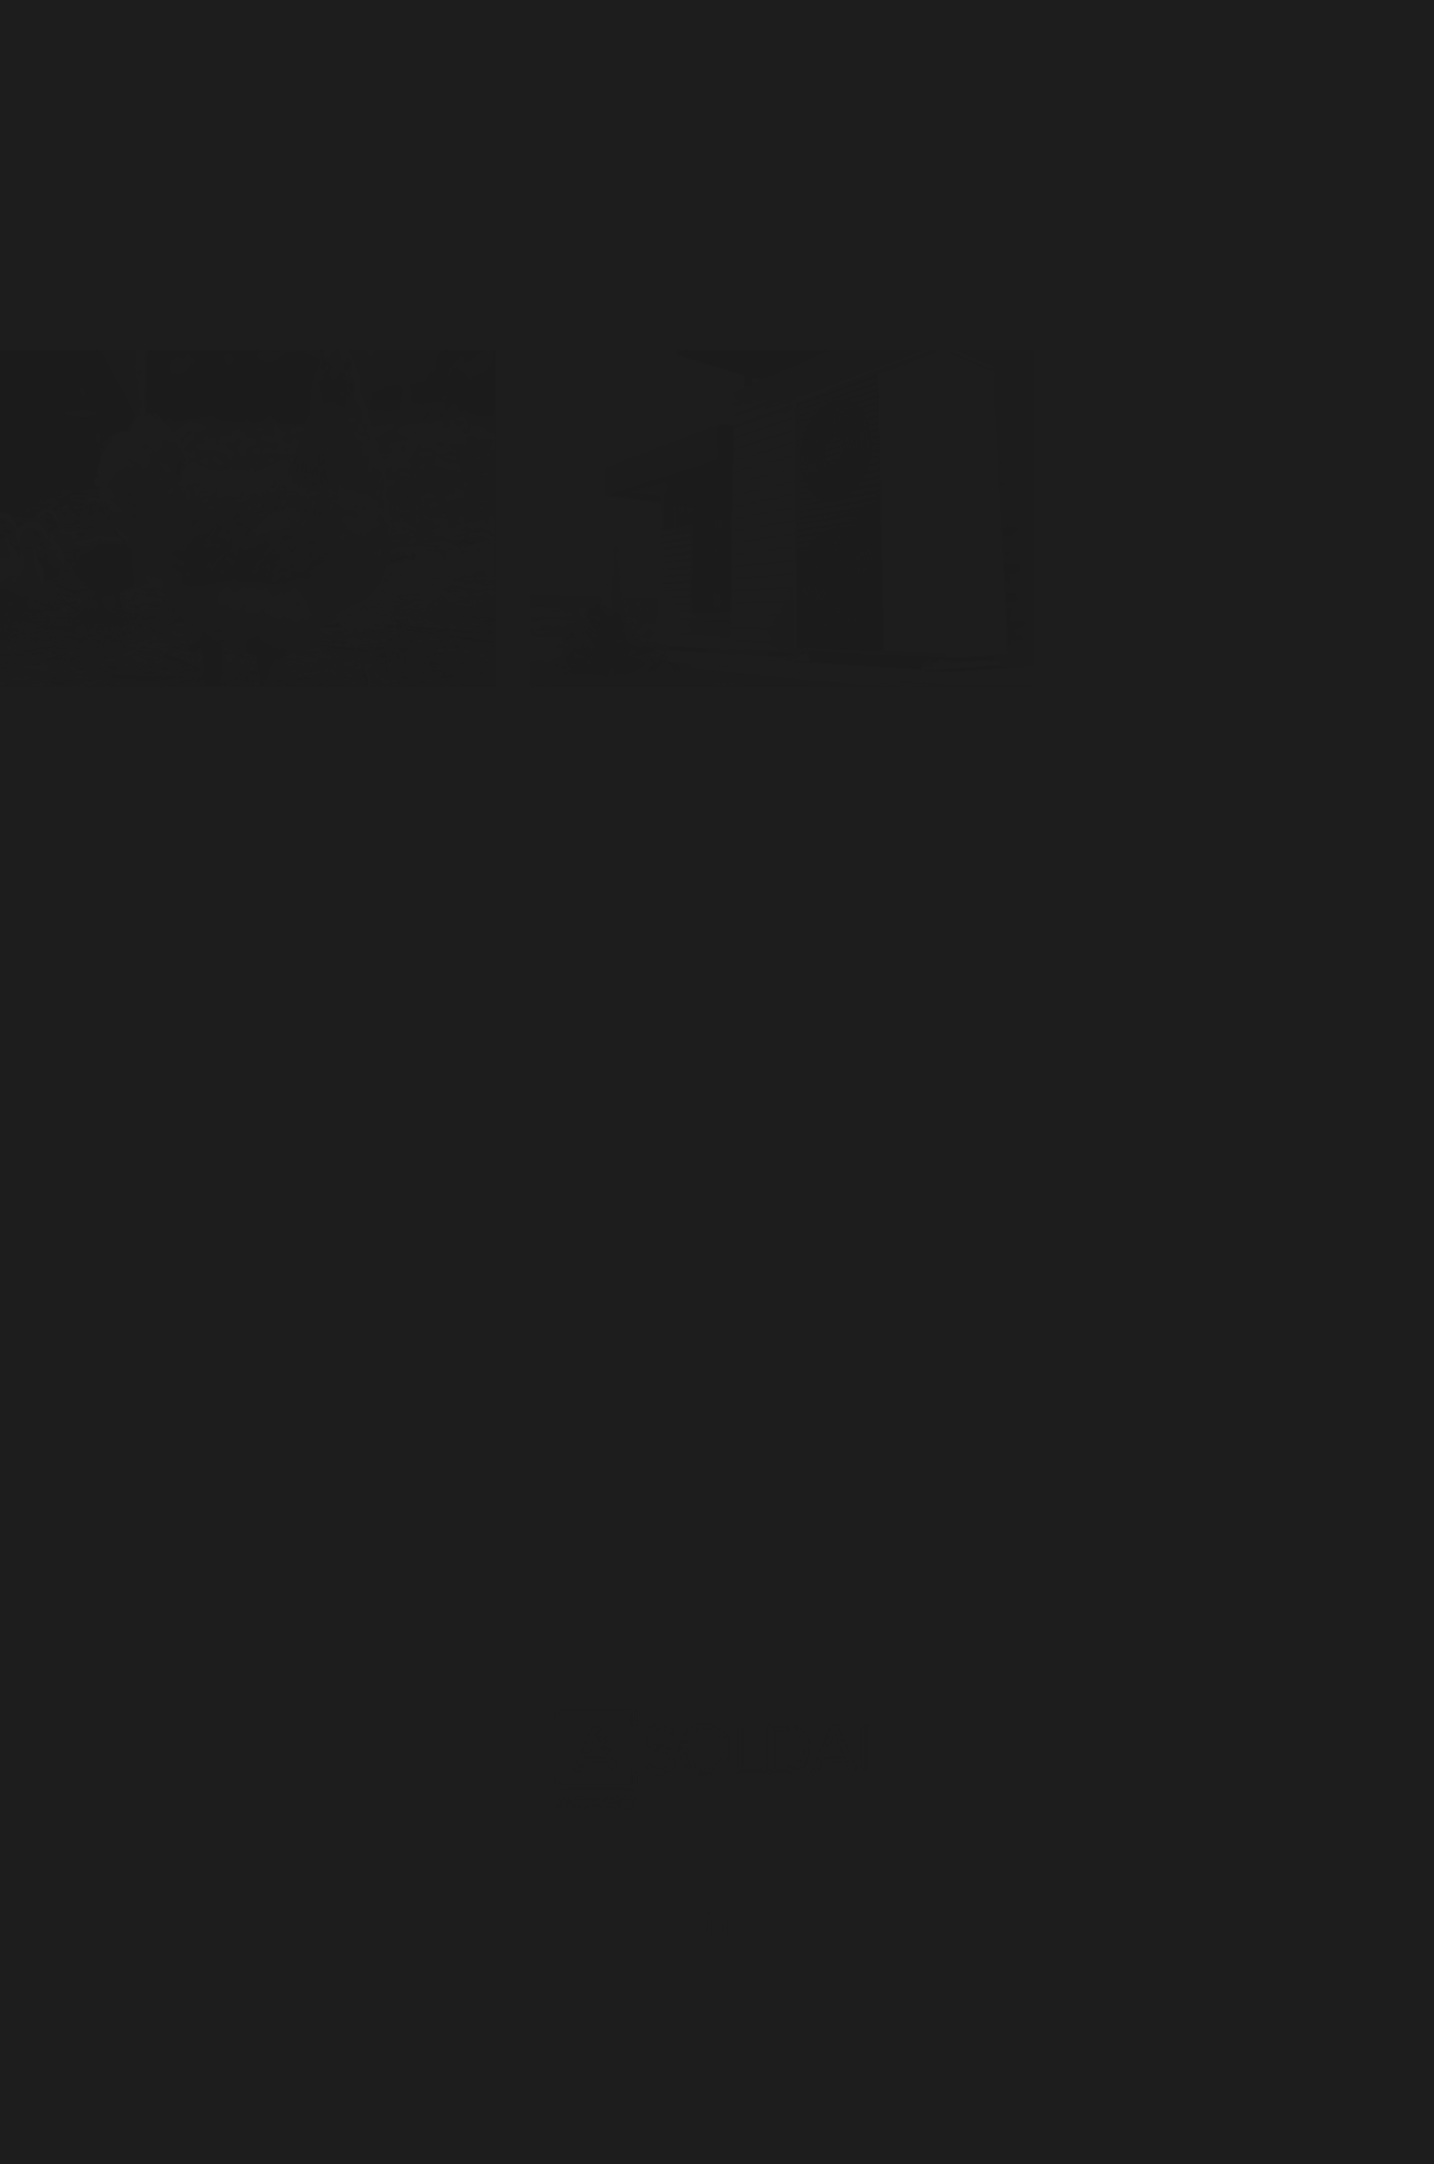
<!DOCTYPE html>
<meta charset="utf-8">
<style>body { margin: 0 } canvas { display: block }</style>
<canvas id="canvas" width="1434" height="2164"></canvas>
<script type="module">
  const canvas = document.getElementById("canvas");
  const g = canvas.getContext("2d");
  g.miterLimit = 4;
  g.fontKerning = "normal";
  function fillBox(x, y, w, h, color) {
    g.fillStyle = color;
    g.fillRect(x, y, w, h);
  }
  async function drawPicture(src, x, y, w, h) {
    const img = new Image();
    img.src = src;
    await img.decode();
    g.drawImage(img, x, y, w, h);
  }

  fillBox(0, 0, 1434, 2164, "#1D1D1D");
  await drawPicture("pic1.png", 0, 350, 496, 337);
  await drawPicture("pic2.png", 530, 350, 504, 337);
  await drawPicture("pic3.png", 554, 1708, 315, 102);
  await drawPicture("pic4.png", 707, 1912, 21, 21);
</script>
